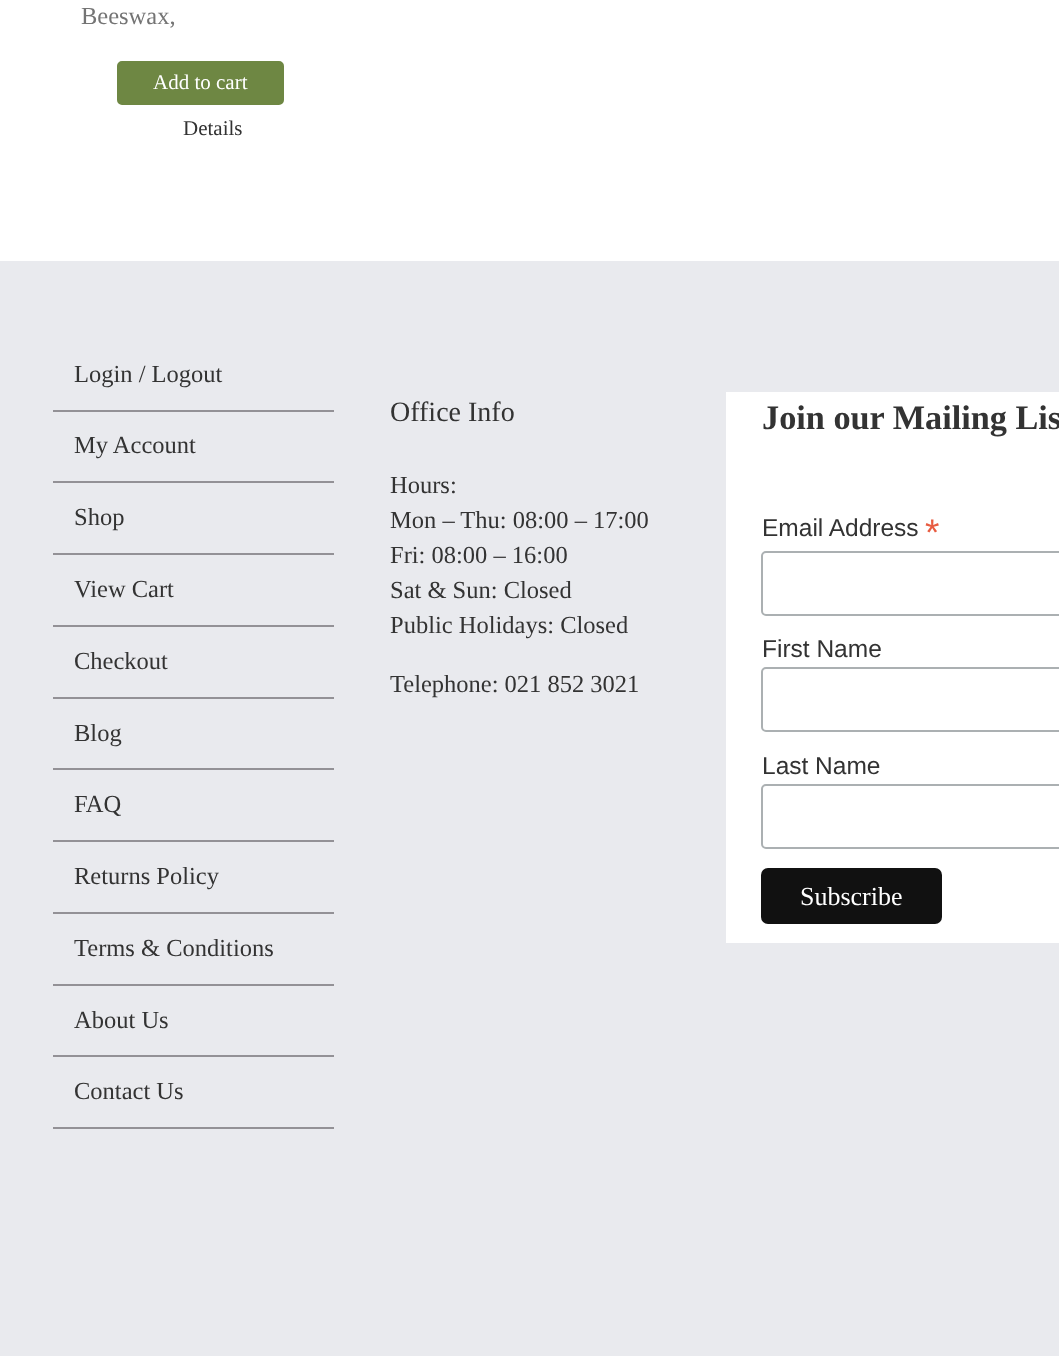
<!DOCTYPE html>
<meta charset="utf-8">
<style>body { margin: 0 } canvas { display: block }</style>
<canvas id="canvas" width="1059" height="1356"></canvas>
<script type="module">
  const canvas = document.getElementById("canvas");
  const g = canvas.getContext("2d");
  g.miterLimit = 4;
  g.fontKerning = "normal";
  function drawText(s, x, y, [font, color]) {
    g.font = font;
    g.fillStyle = color;
    g.fillText(s, x, y);
  }
  function fillBox(x, y, w, h, color) {
    g.fillStyle = color;
    g.fillRect(x, y, w, h);
  }
  function fillRounded(x, y, w, h, r, color) {
    g.fillStyle = color;
    g.beginPath();
    g.roundRect(x, y, w, h, r);
    g.fill();
  }

  const s1 = ["24.5px Liberation Serif", "#747474"];
  const s2 = ["21px Liberation Serif", "#FFFFFF"];
  const s3 = ["21px Liberation Serif", "#333333"];
  const s4 = ["24.5px Liberation Serif", "#333333"];
  const s5 = ["28px Liberation Serif", "#333333"];
  const s6 = ["bold 34.25px Liberation Serif", "#333333"];
  const s7 = ["24.5px Liberation Sans", "#333333"];
  const s8 = ["37px Liberation Sans", "#E85C41"];
  const s9 = ["26px Liberation Serif", "#FFFFFF"];

  fillBox(0, 0, 1059, 1356, "#FFFFFF");
  drawText("Beeswax,", 81, 24, s1);
  g.fillStyle = "#6E8743";
  g.beginPath();
  g.roundRect(118, 62, 165, 42, 4);
  g.fill();
  g.strokeStyle = "#6E8743";
  g.lineWidth = 2;
  g.stroke();
  drawText("Add to cart", 153, 89, s2);
  drawText("Details", 183, 135, s3);
  fillBox(0, 261, 1059, 1095, "#E9EAEE");
  fillBox(53, 410, 281, 2, "#939196");
  drawText("Login / Logout", 74, 382, s4);
  fillBox(53, 481, 281, 2, "#939196");
  drawText("My Account", 74, 453, s4);
  fillBox(53, 553, 281, 2, "#939196");
  drawText("Shop", 74, 525, s4);
  fillBox(53, 625, 281, 2, "#939196");
  drawText("View Cart", 74, 597, s4);
  fillBox(53, 697, 281, 2, "#939196");
  drawText("Checkout", 74, 669, s4);
  fillBox(53, 768, 281, 2, "#939196");
  drawText("Blog", 74, 741, s4);
  fillBox(53, 840, 281, 2, "#939196");
  drawText("FAQ", 74, 812, s4);
  fillBox(53, 912, 281, 2, "#939196");
  drawText("Returns Policy", 74, 884, s4);
  fillBox(53, 984, 281, 2, "#939196");
  drawText("Terms & Conditions", 74, 956, s4);
  fillBox(53, 1055, 281, 2, "#939196");
  drawText("About Us", 74, 1028, s4);
  fillBox(53, 1127, 281, 2, "#939196");
  drawText("Contact Us", 74, 1099, s4);
  drawText("Office Info", 390, 421, s5);
  drawText("Hours:", 390, 493, s4);
  drawText("Mon – Thu: 08:00 – 17:00", 390, 528, s4);
  drawText("Fri: 08:00 – 16:00", 390, 563, s4);
  drawText("Sat & Sun: Closed", 390, 598, s4);
  drawText("Public Holidays: Closed", 390, 633, s4);
  drawText("Telephone: 021 852 3021", 390, 692, s4);
  fillBox(726, 392, 333, 551, "#FFFFFF");
  drawText("Join our Mailing Lis", 762, 429, s6);
  drawText("Email Address", 762, 536, s7);
  drawText("*", 925, 545, s8);
  g.beginPath();
  g.roundRect(762, 552, 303, 63, 4);
  g.strokeStyle = "#ABB0B2";
  g.stroke();
  drawText("First Name", 762, 657, s7);
  g.beginPath();
  g.roundRect(762, 668, 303, 63, 4);
  g.stroke();
  drawText("Last Name", 762, 774, s7);
  g.beginPath();
  g.roundRect(762, 785, 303, 63, 4);
  g.stroke();
  fillRounded(761, 868, 181, 56, 7, "#111111");
  drawText("Subscribe", 800, 905, s9);
</script>
